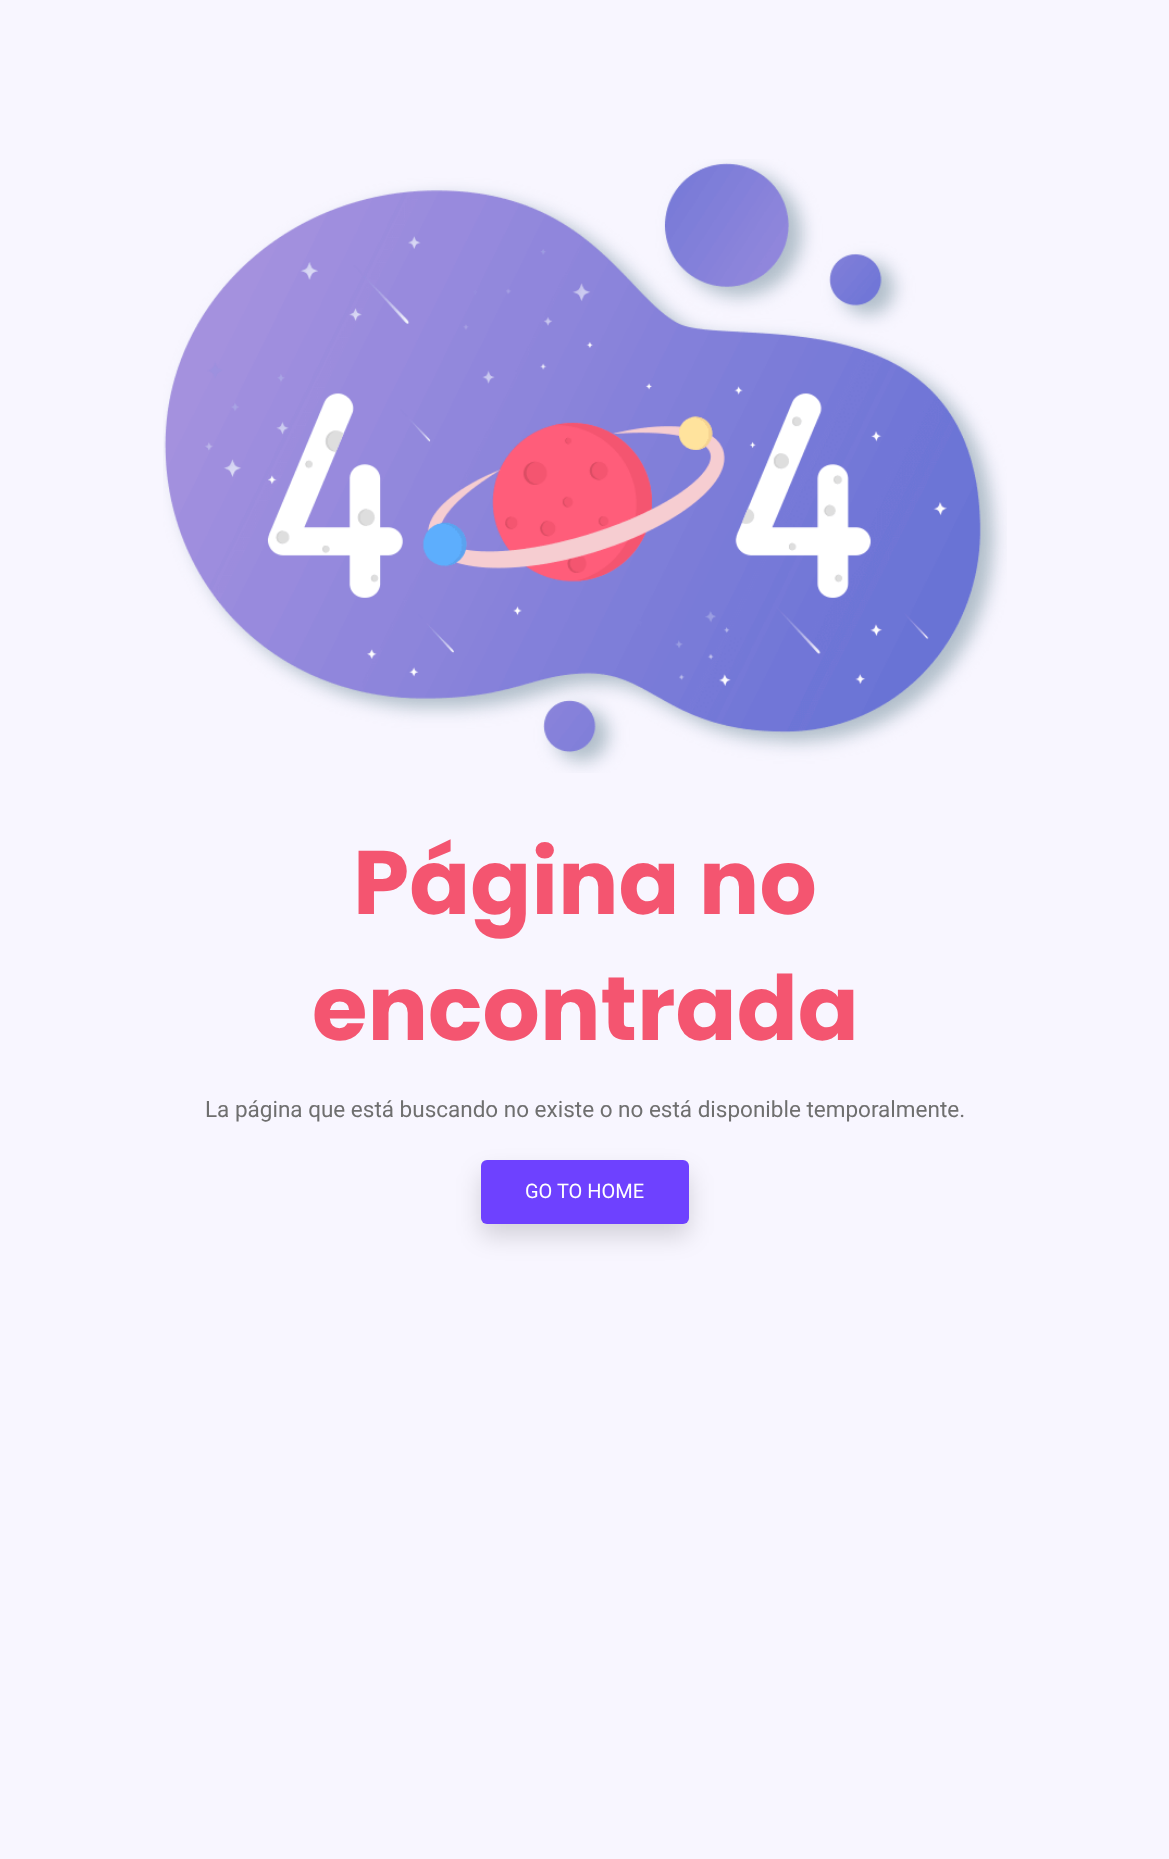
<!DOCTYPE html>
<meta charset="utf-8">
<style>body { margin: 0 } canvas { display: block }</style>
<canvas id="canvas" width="1169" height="1859"></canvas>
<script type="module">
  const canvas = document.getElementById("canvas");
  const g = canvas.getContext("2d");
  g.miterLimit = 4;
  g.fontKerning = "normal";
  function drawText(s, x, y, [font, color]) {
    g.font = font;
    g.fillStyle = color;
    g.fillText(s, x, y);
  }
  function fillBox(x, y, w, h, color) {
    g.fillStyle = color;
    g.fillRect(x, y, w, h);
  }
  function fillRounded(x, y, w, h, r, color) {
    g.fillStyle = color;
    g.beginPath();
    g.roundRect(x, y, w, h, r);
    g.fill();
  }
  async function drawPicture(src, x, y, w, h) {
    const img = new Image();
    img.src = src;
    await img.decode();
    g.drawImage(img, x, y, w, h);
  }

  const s1 = ["bold 90px Poppins", "#F45570"];
  const s2 = ["22.5px Roboto", "#6F6F6F"];
  const s3 = ["20px Roboto", "#FFFFFF"];

  fillBox(0, 0, 1169, 1859, "#F8F6FF");
  await drawPicture("pic1.png", 163, 159, 844, 614);
  drawText("Página no", 353, 914, s1);
  drawText("encontrada", 312, 1040, s1);
  drawText("La página que está buscando no existe o no está disponible temporalmente.", 205, 1117, s2);
  g.fillStyle = "rgba(0, 0, 0, 0.15)";
  g.filter = "blur(12.5px)";
  g.beginPath();
  g.roundRect(481, 1173, 208, 63, 6);
  g.fill();
  g.filter = "none";
  fillRounded(481, 1160, 208, 64, 6, "#6E41FF");
  drawText("GO TO HOME", 525, 1198, s3);
</script>
